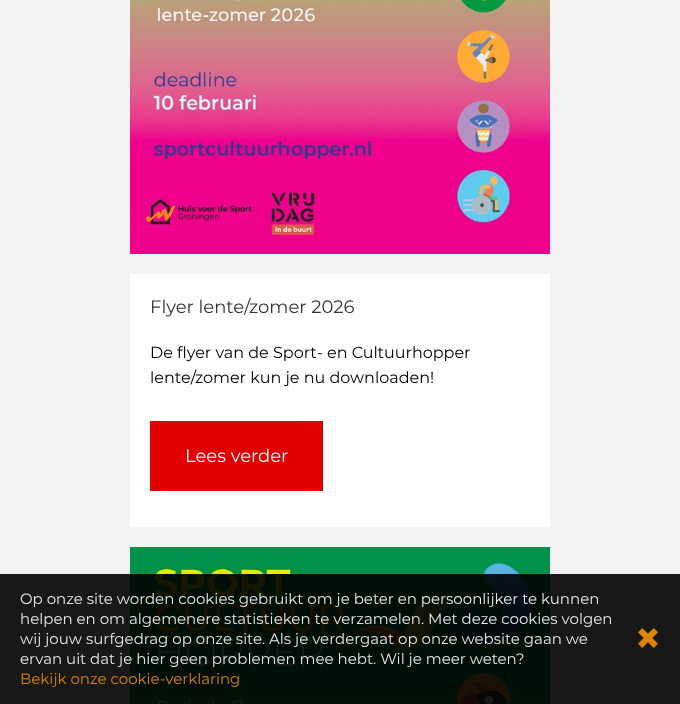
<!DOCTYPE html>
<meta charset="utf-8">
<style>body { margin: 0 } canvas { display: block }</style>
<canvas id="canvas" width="680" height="704"></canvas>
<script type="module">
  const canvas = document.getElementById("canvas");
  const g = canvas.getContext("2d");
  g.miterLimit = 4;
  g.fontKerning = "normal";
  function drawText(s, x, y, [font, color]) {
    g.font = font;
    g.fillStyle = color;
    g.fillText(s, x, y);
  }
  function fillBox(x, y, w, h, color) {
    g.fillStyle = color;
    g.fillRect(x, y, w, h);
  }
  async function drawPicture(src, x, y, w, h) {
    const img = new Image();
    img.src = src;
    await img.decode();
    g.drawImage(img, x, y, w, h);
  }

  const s1 = ["18px Montserrat", "#333333"];
  const s2 = ["16px Montserrat", "#000000"];
  const s3 = ["18px Montserrat", "#FFFFFF"];
  const s4 = ["15px Montserrat", "#E6E7E7"];
  const s5 = ["15px Montserrat", "#DB8502"];

  fillBox(0, 0, 680, 704, "#F3F3F3");
  await drawPicture("pic1.png", 130, 0, 420, 254);
  fillBox(130, 274, 420, 253, "#FFFFFF");
  drawText("Flyer lente/zomer 2026", 150, 313, s1);
  drawText("De flyer van de Sport- en Cultuurhopper", 150, 358, s2);
  drawText("lente/zomer kun je nu downloaden!", 150, 383, s2);
  fillBox(150, 421, 173, 70, "#E00000");
  drawText("Lees verder", 185, 462, s3);
  await drawPicture("pic2.png", 130, 547, 420, 157);
  fillBox(0, 574, 680, 130, "rgba(0, 0, 0, 0.9)");
  drawText("Op onze site worden cookies gebruikt om je beter en persoonlijker te kunnen", 20, 604, s4);
  drawText("helpen en om algemenere statistieken te verzamelen. Met deze cookies volgen", 20, 624, s4);
  drawText("wij jouw surfgedrag op onze site. Als je verdergaat op onze website gaan we", 20, 644, s4);
  drawText("ervan uit dat je hier geen problemen mee hebt. Wil je meer weten?", 20, 664, s4);
  drawText("Bekijk onze cookie-verklaring", 20, 684, s5);
  await drawPicture("pic3.png", 638, 628, 20, 20);
</script>
